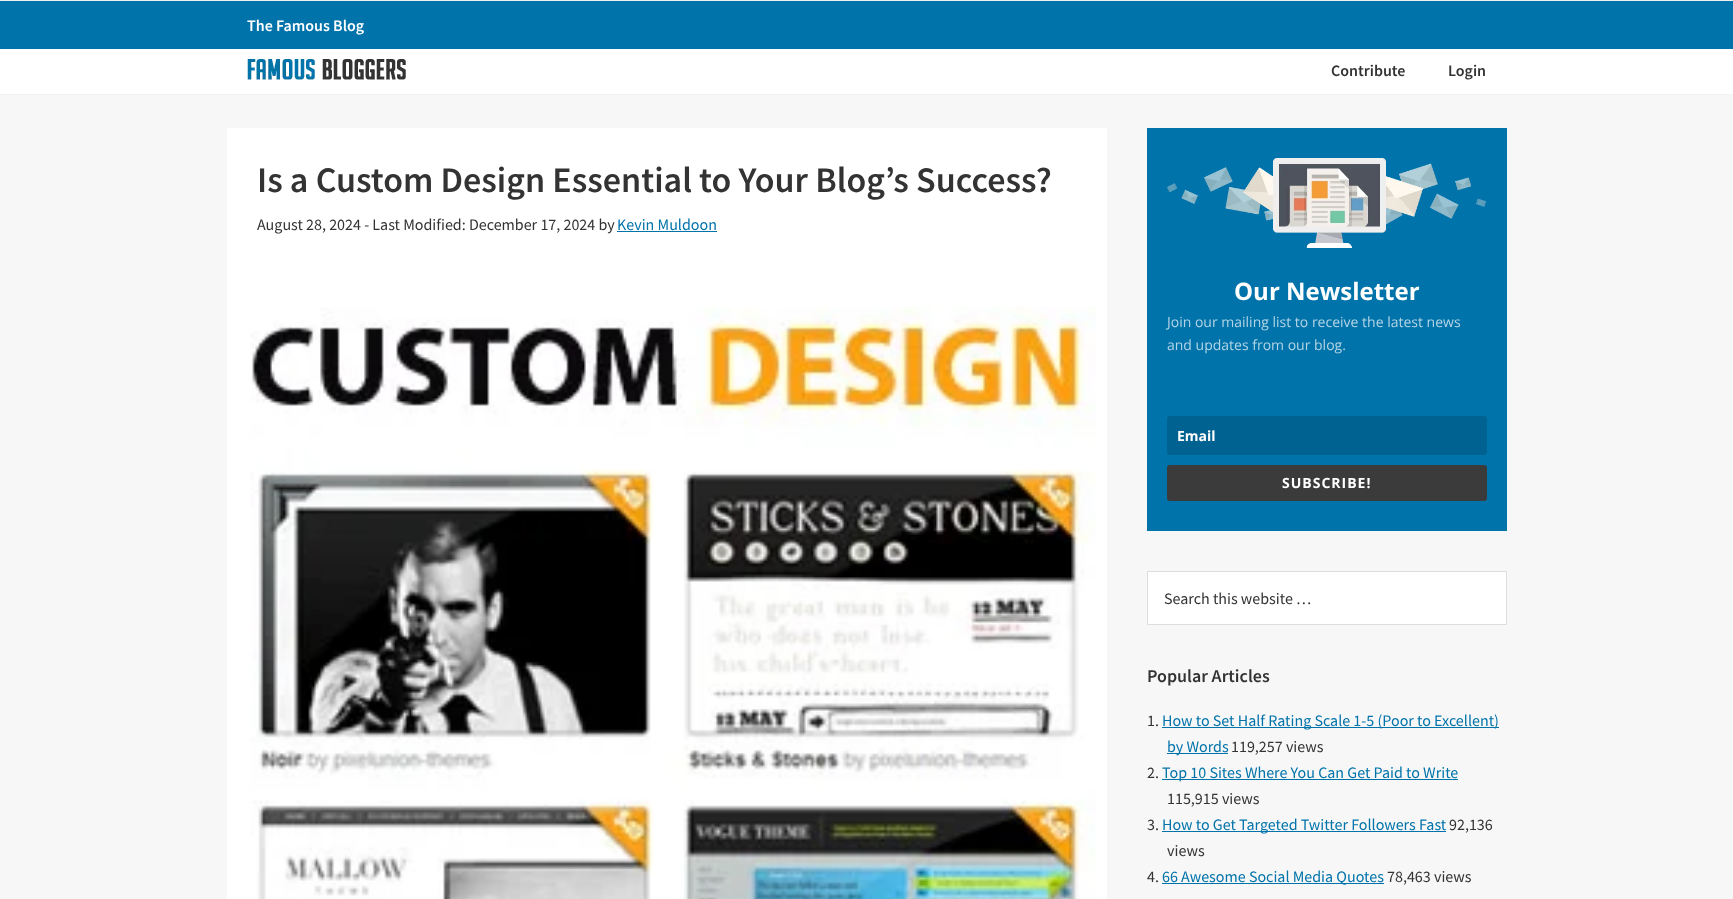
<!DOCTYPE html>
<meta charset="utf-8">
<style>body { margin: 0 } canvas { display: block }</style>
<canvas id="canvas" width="1733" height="899"></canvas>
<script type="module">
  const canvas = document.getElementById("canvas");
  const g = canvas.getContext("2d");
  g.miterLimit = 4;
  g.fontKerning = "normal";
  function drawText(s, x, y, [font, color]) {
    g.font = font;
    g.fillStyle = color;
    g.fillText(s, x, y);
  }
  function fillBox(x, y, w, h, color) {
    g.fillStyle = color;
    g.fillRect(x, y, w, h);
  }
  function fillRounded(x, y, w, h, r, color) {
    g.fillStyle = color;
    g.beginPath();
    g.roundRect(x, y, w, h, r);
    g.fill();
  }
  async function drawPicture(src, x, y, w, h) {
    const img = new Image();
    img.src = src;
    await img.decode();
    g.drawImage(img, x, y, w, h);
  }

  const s1 = ["600 16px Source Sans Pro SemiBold", "#FFFFFF"];
  const s2 = ["600 16px Source Sans Pro SemiBold", "#333333"];
  const s3 = ["600 36px Source Sans Pro SemiBold", "#333333"];
  const s4 = ["16px Source Sans Pro", "#333333"];
  const s5 = ["16px Source Sans Pro", "#0073AA"];
  const s6 = ["bold 24px Open Sans", "#FFFFFF"];
  const s7 = ["14px Open Sans", "#B3D5E6"];
  const s8 = ["bold 14px Open Sans", "#FFFFFF"];
  const s9 = ["600 18px Source Sans Pro SemiBold", "#333333"];

  fillBox(0, 0, 1733, 899, "#F7F7F7");
  fillBox(0, 1, 1733, 48, "#0073AA");
  fillBox(0, 0, 1733, 1, "#EEEEEE");
  drawText("The Famous Blog", 247, 31, s1);
  fillBox(0, 49, 1733, 45, "#FFFFFF");
  fillBox(0, 94, 1733, 1, "#F1F1F1");
  await drawPicture("pic1.png", 247, 59, 159, 21);
  drawText("Contribute", 1331, 76, s2);
  drawText("Login", 1448, 76, s2);
  fillBox(227, 128, 880, 771, "#FFFFFF");
  drawText("Is a Custom Design Essential to Your Blog’s Success?", 257, 192, s3);
  drawText("August 28, 2024 - Last Modified: December 17, 2024 by", 257, 230, s4);
  drawText("Kevin Muldoon", 617, 230, s5);
  fillBox(617, 231, 100, 1, "#0073AA");
  await drawPicture("pic2.png", 250, 306, 846, 593);
  fillBox(1147, 128, 360, 403, "#0073AA");
  await drawPicture("pic3.png", 1167, 158, 319, 90);
  drawText("Our Newsletter", 1234, 300, s6);
  drawText("Join our mailing list to receive the latest news", 1167, 327, s7);
  drawText("and updates from our blog.", 1167, 350, s7);
  fillRounded(1167, 416, 320, 39, 3, "#006291");
  drawText("Email", 1177, 441, s8);
  fillRounded(1167, 465, 320, 36, 3, "#3B3B3B");
  g.letterSpacing = "1px";
  drawText("SUBSCRIBE!", 1282, 488, s8);
  g.beginPath();
  g.rect(1147.5, 571.5, 359, 53);
  g.fill();
  g.strokeStyle = "#DDDDDD";
  g.stroke();
  g.letterSpacing = "0px";
  drawText("Search this website …", 1164, 604, s4);
  drawText("Popular Articles", 1147, 682, s9);
  drawText("1.", 1147, 726, s4);
  fillBox(1162, 727, 337, 1, "#0073AA");
  drawText("How to Set Half Rating Scale 1-5 (Poor to Excellent)", 1162, 726, s5);
  fillBox(1167, 753, 61, 1, "#0073AA");
  drawText("by Words", 1167, 752, s5);
  drawText("119,257 views", 1231, 752, s4);
  drawText("2.", 1147, 778, s4);
  fillBox(1162, 779, 296, 1, "#0073AA");
  drawText("Top 10 Sites Where You Can Get Paid to Write", 1162, 778, s5);
  drawText("115,915 views", 1167, 804, s4);
  drawText("3.", 1147, 830, s4);
  fillBox(1162, 831, 284, 1, "#0073AA");
  drawText("How to Get Targeted Twitter Followers Fast", 1162, 830, s5);
  drawText("92,136", 1449, 830, s4);
  drawText("views", 1167, 856, s4);
  drawText("4.", 1147, 882, s4);
  fillBox(1162, 883, 222, 1, "#0073AA");
  drawText("66 Awesome Social Media Quotes", 1162, 882, s5);
  drawText("78,463 views", 1387, 882, s4);
</script>
